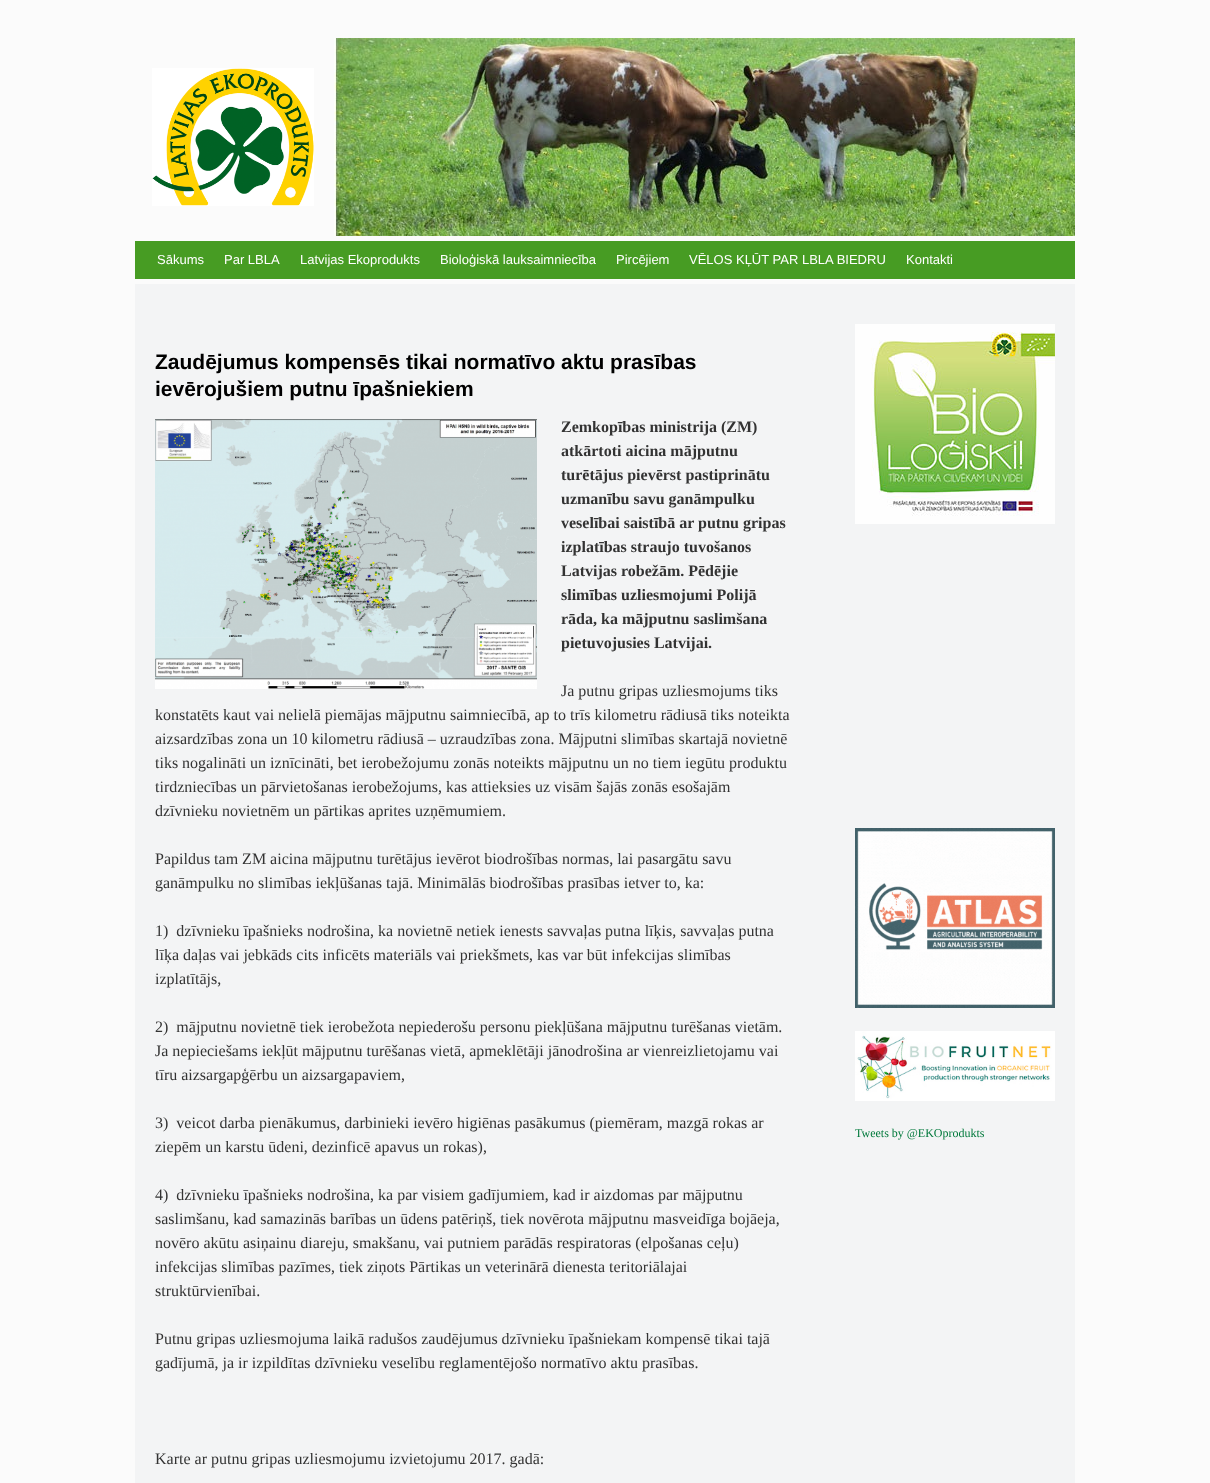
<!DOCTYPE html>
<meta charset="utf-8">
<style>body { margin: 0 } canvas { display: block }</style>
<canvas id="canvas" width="1210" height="1483"></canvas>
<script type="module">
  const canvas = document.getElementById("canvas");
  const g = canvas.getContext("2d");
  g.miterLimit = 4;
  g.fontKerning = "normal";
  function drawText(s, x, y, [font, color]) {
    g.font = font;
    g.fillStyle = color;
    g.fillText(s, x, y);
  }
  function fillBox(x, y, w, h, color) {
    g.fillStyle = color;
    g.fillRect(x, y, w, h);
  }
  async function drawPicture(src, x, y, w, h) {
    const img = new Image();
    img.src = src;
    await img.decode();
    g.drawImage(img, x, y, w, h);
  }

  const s1 = ["13px Liberation Sans", "#FFFFFF"];
  const s2 = ["bold 21px Liberation Sans", "#000000"];
  const s3 = ["bold 16px Liberation Serif", "#333333"];
  const s4 = ["16px Liberation Serif", "#333333"];
  const s5 = ["12px Liberation Serif", "#00793B"];

  fillBox(0, 0, 1210, 1483, "#FBFBFB");
  await drawPicture("pic1.png", 334, 38, 741, 198);
  await drawPicture("pic2.png", 152, 68, 162, 138);
  fillBox(135, 241, 940, 38, "#479C23");
  drawText("Sākums", 157, 264, s1);
  drawText("Par LBLA", 224, 264, s1);
  drawText("Latvijas Ekoprodukts", 300, 264, s1);
  drawText("Bioloģiskā lauksaimniecība", 440, 264, s1);
  drawText("Pircējiem", 616, 264, s1);
  drawText("VĒLOS KĻŪT PAR LBLA BIEDRU", 689, 264, s1);
  drawText("Kontakti", 906, 264, s1);
  fillBox(135, 284, 940, 1199, "#F3F4F5");
  drawText("Zaudējumus kompensēs tikai normatīvo aktu prasības", 155, 369, s2);
  drawText("ievērojušiem putnu īpašniekiem", 155, 396, s2);
  await drawPicture("pic3.png", 155, 419, 382, 270);
  drawText("Zemkopības ministrija (ZM)", 561, 432, s3);
  drawText("atkārtoti aicina mājputnu", 561, 456, s3);
  drawText("turētājus pievērst pastiprinātu", 561, 480, s3);
  drawText("uzmanību savu ganāmpulku", 561, 504, s3);
  drawText("veselībai saistībā ar putnu gripas", 561, 528, s3);
  drawText("izplatības straujo tuvošanos", 561, 552, s3);
  drawText("Latvijas robežām. Pēdējie", 561, 576, s3);
  drawText("slimības uzliesmojumi Polijā", 561, 600, s3);
  drawText("rāda, ka mājputnu saslimšana", 561, 624, s3);
  drawText("pietuvojusies Latvijai.", 561, 648, s3);
  drawText("Ja putnu gripas uzliesmojums tiks", 561, 696, s4);
  drawText("konstatēts kaut vai nelielā piemājas mājputnu saimniecībā, ap to trīs kilometru rādiusā tiks noteikta", 155, 720, s4);
  drawText("aizsardzības zona un 10 kilometru rādiusā – uzraudzības zona. Mājputni slimības skartajā novietnē", 155, 744, s4);
  drawText("tiks nogalināti un iznīcināti, bet ierobežojumu zonās noteikts mājputnu un no tiem iegūtu produktu", 155, 768, s4);
  drawText("tirdzniecības un pārvietošanas ierobežojums, kas attieksies uz visām šajās zonās esošajām", 155, 792, s4);
  drawText("dzīvnieku novietnēm un pārtikas aprites uzņēmumiem.", 155, 816, s4);
  drawText("Papildus tam ZM aicina mājputnu turētājus ievērot biodrošības normas, lai pasargātu savu", 155, 864, s4);
  drawText("ganāmpulku no slimības iekļūšanas tajā. Minimālās biodrošības prasības ietver to, ka:", 155, 888, s4);
  drawText("1)  dzīvnieku īpašnieks nodrošina, ka novietnē netiek ienests savvaļas putna līķis, savvaļas putna", 155, 936, s4);
  drawText("līķa daļas vai jebkāds cits inficēts materiāls vai priekšmets, kas var būt infekcijas slimības", 155, 960, s4);
  drawText("izplatītājs,", 155, 984, s4);
  drawText("2)  mājputnu novietnē tiek ierobežota nepiederošu personu piekļūšana mājputnu turēšanas vietām.", 155, 1032, s4);
  drawText("Ja nepieciešams iekļūt mājputnu turēšanas vietā, apmeklētāji jānodrošina ar vienreizlietojamu vai", 155, 1056, s4);
  drawText("tīru aizsargapģērbu un aizsargapaviem,", 155, 1080, s4);
  drawText("3)  veicot darba pienākumus, darbinieki ievēro higiēnas pasākumus (piemēram, mazgā rokas ar", 155, 1128, s4);
  drawText("ziepēm un karstu ūdeni, dezinficē apavus un rokas),", 155, 1152, s4);
  drawText("4)  dzīvnieku īpašnieks nodrošina, ka par visiem gadījumiem, kad ir aizdomas par mājputnu", 155, 1200, s4);
  drawText("saslimšanu, kad samazinās barības un ūdens patēriņš, tiek novērota mājputnu masveidīga bojāeja,", 155, 1224, s4);
  drawText("novēro akūtu asiņainu diareju, smakšanu, vai putniem parādās respiratoras (elpošanas ceļu)", 155, 1248, s4);
  drawText("infekcijas slimības pazīmes, tiek ziņots Pārtikas un veterinārā dienesta teritoriālajai", 155, 1272, s4);
  drawText("struktūrvienībai.", 155, 1296, s4);
  drawText("Putnu gripas uzliesmojuma laikā radušos zaudējumus dzīvnieku īpašniekam kompensē tikai tajā", 155, 1344, s4);
  drawText("gadījumā, ja ir izpildītas dzīvnieku veselību reglamentējošo normatīvo aktu prasības.", 155, 1368, s4);
  drawText("Karte ar putnu gripas uzliesmojumu izvietojumu 2017. gadā:", 155, 1464, s4);
  await drawPicture("pic4.png", 855, 324, 200, 200);
  await drawPicture("pic5.png", 855, 828, 200, 180);
  await drawPicture("pic6.png", 855, 1031, 200, 70);
  drawText("Tweets by @EKOprodukts", 855, 1137, s5);
</script>
